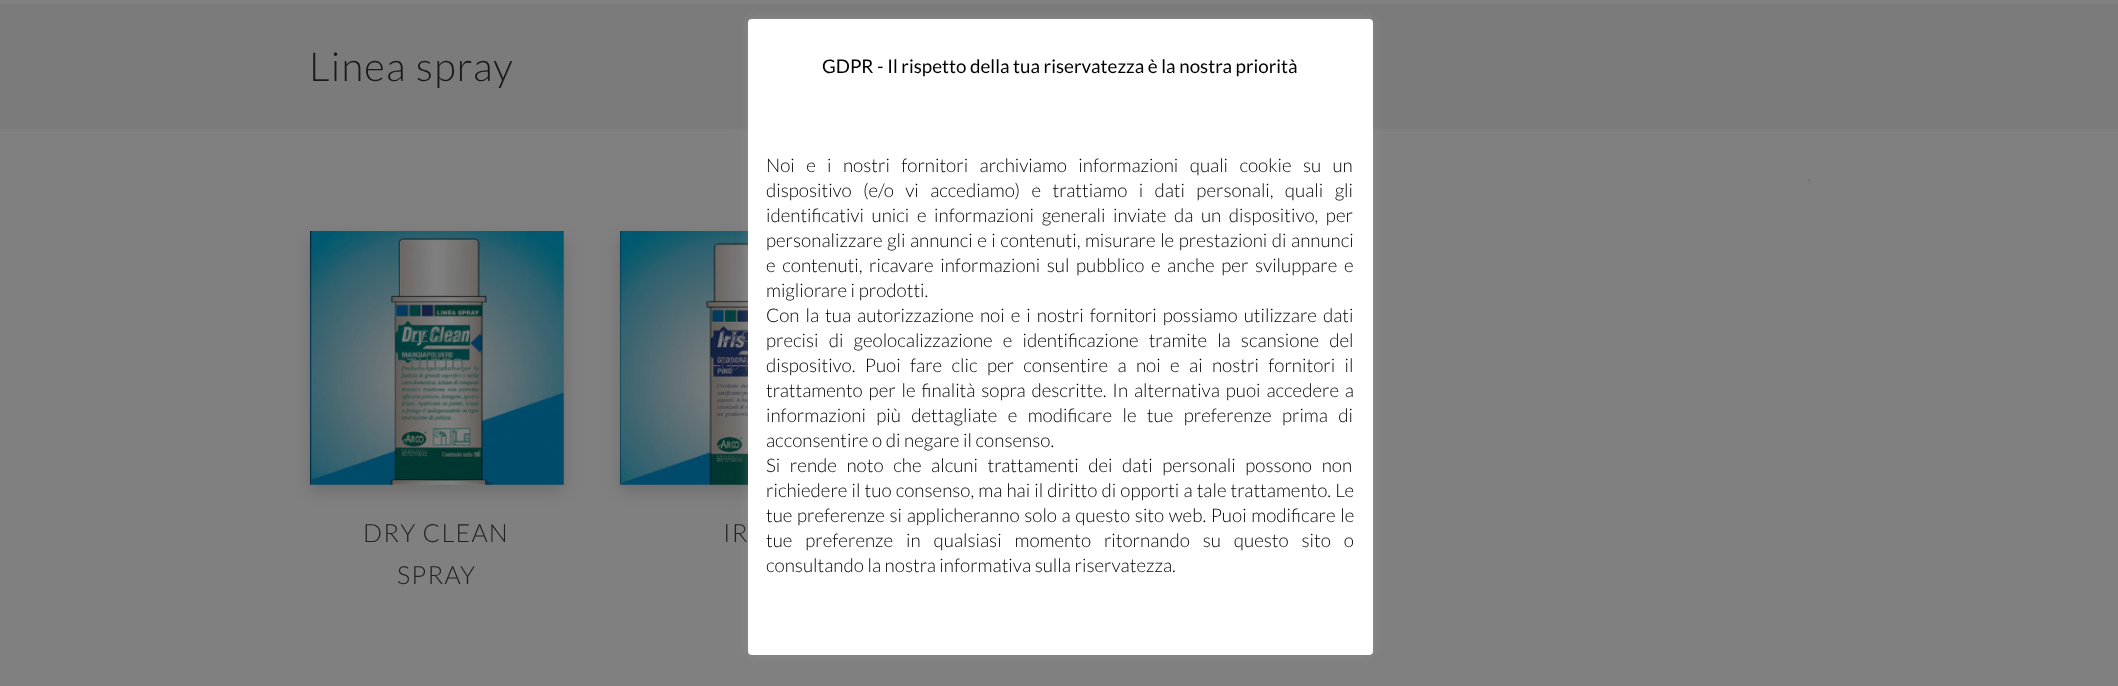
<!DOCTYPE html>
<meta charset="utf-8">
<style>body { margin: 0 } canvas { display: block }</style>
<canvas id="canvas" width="2118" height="686"></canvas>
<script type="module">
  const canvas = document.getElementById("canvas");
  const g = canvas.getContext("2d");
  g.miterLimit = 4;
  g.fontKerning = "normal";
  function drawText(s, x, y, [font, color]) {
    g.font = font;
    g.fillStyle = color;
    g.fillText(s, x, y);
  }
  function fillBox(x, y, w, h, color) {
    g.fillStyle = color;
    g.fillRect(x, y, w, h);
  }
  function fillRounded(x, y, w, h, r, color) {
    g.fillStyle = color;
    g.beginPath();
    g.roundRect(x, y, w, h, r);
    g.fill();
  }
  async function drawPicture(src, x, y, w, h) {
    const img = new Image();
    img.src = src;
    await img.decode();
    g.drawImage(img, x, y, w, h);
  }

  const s1 = ["300 40px Lato", "#1A1A1A"];
  const s2 = ["16px Lato", "#45605E"];
  const s3 = ["16px Lato", "#4F6361"];
  const s4 = ["300 25px Lato", "#222222"];
  const s5 = ["16px Lato", "#494F5E"];
  const s6 = ["16px Lato", "#323950"];
  const s7 = ["18.75px Lato", "#000000"];
  const s8 = ["300 18.75px Lato", "#000000"];

  fillBox(0, 0, 2118, 686, "#808080");
  fillBox(0, 4, 2118, 125, "#7B7B7B");
  g.letterSpacing = "1.25px";
  drawText("Linea spray", 309, 81, s1);
  fillBox(1808, 179, 3, 3, "#767676");
  g.fillStyle = "rgba(0, 0, 0, 0.15)";
  g.filter = "blur(7.5px)";
  g.beginPath();
  g.roundRect(310, 238, 254, 253, 4);
  g.fill();
  g.filter = "none";
  await drawPicture("pic1.png", 310, 231, 254, 254);
  drawText("LEGGI", 410, 342, s2);
  drawText("TUTTO", 407, 370, s3);
  drawText("DRY CLEAN", 363, 542, s4);
  drawText("SPRAY", 397, 584, s4);
  g.fillStyle = "rgba(0, 0, 0, 0.15)";
  g.filter = "blur(7.5px)";
  g.beginPath();
  g.roundRect(620, 238, 255, 253, 4);
  g.fill();
  g.filter = "none";
  await drawPicture("pic2.png", 620, 231, 128, 254);
  drawText("LEG", 721, 342, s5);
  drawText("TUT", 718, 370, s6);
  drawText("IR", 723, 542, s4);
  g.fillStyle = "rgba(172, 171, 171, 0.3)";
  g.filter = "blur(6px)";
  g.beginPath();
  g.roundRect(748, 18, 625, 636, 4);
  g.fill();
  g.filter = "none";
  fillRounded(748, 19, 625, 636, 4, "#FFFFFF");
  g.letterSpacing = "0px";
  drawText("GDPR - Il rispetto della tua riservatezza è la nostra priorità", 822, 73, s7);
  g.wordSpacing = "7.75px";
  drawText("Noi e i nostri fornitori archiviamo informazioni quali cookie su un", 766, 172, s8);
  drawText("dispositivo (e/o vi accediamo) e trattiamo i dati personali, quali gli", 766, 197, s8);
  g.wordSpacing = "4px";
  drawText("identificativi unici e informazioni generali inviate da un dispositivo, per", 766, 222, s8);
  g.wordSpacing = "0.9px";
  drawText("personalizzare gli annunci e i contenuti, misurare le prestazioni di annunci", 766, 247, s8);
  g.wordSpacing = "3px";
  drawText("e contenuti, ricavare informazioni sul pubblico e anche per sviluppare e", 766, 272, s8);
  g.wordSpacing = "0px";
  drawText("migliorare i prodotti.", 766, 297, s8);
  g.wordSpacing = "2.4px";
  drawText("Con la tua autorizzazione noi e i nostri fornitori possiamo utilizzare dati", 766, 322, s8);
  g.wordSpacing = "6.5px";
  drawText("precisi di geolocalizzazione e identificazione tramite la scansione del", 766, 347, s8);
  g.wordSpacing = "5.75px";
  drawText("dispositivo. Puoi fare clic per consentire a noi e ai nostri fornitori il", 766, 372, s8);
  g.wordSpacing = "2.25px";
  drawText("trattamento per le finalità sopra descritte. In alternativa puoi accedere a", 766, 397, s8);
  g.wordSpacing = "6.75px";
  drawText("informazioni più dettagliate e modificare le tue preferenze prima di", 766, 422, s8);
  g.wordSpacing = "0px";
  drawText("acconsentire o di negare il consenso.", 766, 447, s8);
  g.wordSpacing = "6px";
  drawText("Si rende noto che alcuni trattamenti dei dati personali possono non", 766, 472, s8);
  g.wordSpacing = "0.5px";
  drawText("richiedere il tuo consenso, ma hai il diritto di opporti a tale trattamento. Le", 766, 497, s8);
  g.wordSpacing = "1px";
  drawText("tue preferenze si applicheranno solo a questo sito web. Puoi modificare le", 766, 522, s8);
  g.wordSpacing = "9.25px";
  drawText("tue preferenze in qualsiasi momento ritornando su questo sito o", 766, 547, s8);
  g.wordSpacing = "0px";
  drawText("consultando la nostra informativa sulla riservatezza.", 766, 572, s8);
</script>
